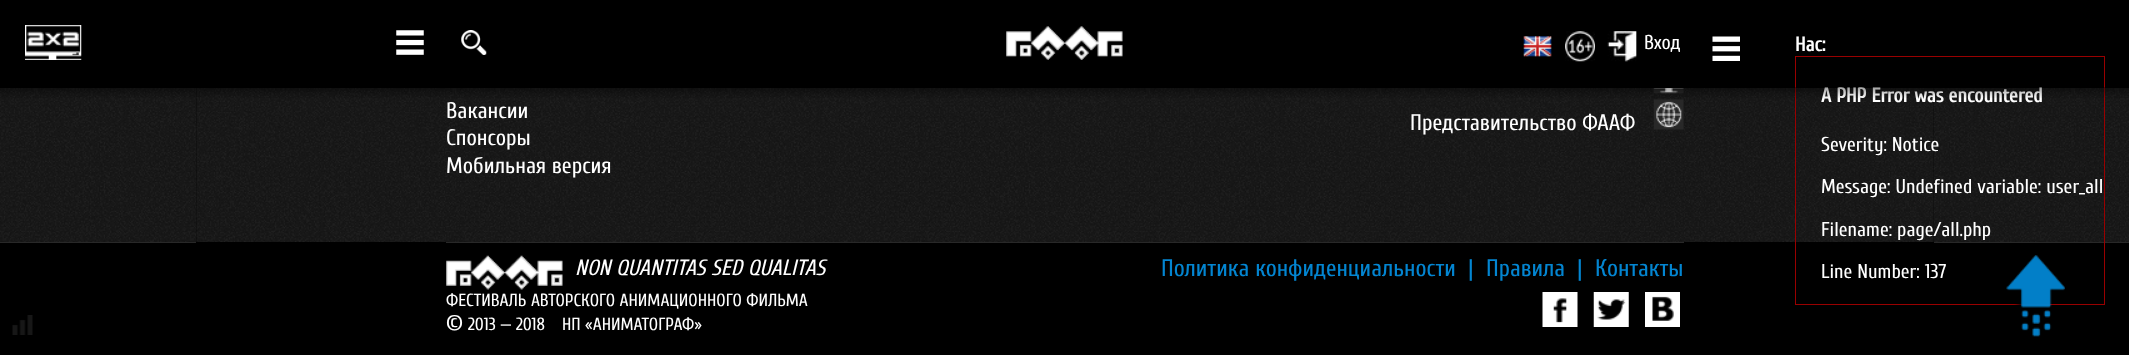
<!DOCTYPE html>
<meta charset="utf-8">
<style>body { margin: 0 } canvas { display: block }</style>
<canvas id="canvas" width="2129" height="355"></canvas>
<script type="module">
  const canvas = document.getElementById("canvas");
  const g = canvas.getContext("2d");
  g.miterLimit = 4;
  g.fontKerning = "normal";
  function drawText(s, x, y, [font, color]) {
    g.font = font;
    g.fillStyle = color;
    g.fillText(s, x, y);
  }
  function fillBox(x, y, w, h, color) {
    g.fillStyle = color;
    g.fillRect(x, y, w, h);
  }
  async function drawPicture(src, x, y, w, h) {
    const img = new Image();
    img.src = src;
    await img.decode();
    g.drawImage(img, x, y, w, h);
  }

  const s1 = ["20px Cuprum", "#FFFFFF"];
  const s2 = ["bold 20px Cuprum", "#FFFFFF"];
  const s3 = ["22.5px Cuprum", "#FFFFFF"];
  const s4 = ["italic 22px Cuprum", "#FFFFFF"];
  const s5 = ["17.6px Cuprum", "#FFFFFF"];
  const s6 = ["21px Cuprum", "#FFFFFF"];
  const s7 = ["24px Cuprum", "#0385D1"];

  fillBox(0, 0, 2129, 355, "#282828");
  fillBox(0, 0, 2129, 88, "#000000");
  await drawPicture("pic1.png", 25, 25, 57, 35);
  await drawPicture("pic2.png", 396, 30, 28, 25);
  await drawPicture("pic3.png", 461, 30, 26, 25);
  await drawPicture("pic4.png", 1006, 26, 117, 34);
  await drawPicture("pic5.png", 1523, 36, 29, 21);
  await drawPicture("pic6.png", 1565, 31, 30, 31);
  await drawPicture("pic7.png", 1607, 31, 30, 31);
  drawText("Вход", 1644, 49, s1);
  await drawPicture("pic8.png", 1712, 36, 28, 25);
  drawText("Нас:", 1795, 51, s2);
  await drawPicture("pic13.png", 0, 88, 2129, 154);
  fillBox(1684, 88, 250, 155, "#000000");
  await drawPicture("pic14.png", 1653, 88, 31, 6);
  await drawPicture("pic15.png", 1653, 99, 31, 31);
  await drawPicture("pic11.png", 1683, 88, 251, 154);
  fillBox(0, 243, 2129, 112, "#000000");
  g.strokeStyle = "#990000";
  g.strokeRect(1795.5, 56.5, 309, 248);
  drawText("A PHP Error was encountered", 1821, 102, s2);
  drawText("Severity: Notice", 1821, 151, s1);
  drawText("Message: Undefined variable: user_all", 1821, 193, s1);
  drawText("Filename: page/all.php", 1821, 236, s1);
  drawText("Line Number: 137", 1821, 278, s1);
  fillBox(196, 88, 250, 155, "#000000");
  await drawPicture("pic10.png", 196, 88, 250, 154);
  await drawPicture("pic9.png", 0, 87, 2129, 11);
  await drawPicture("pic12.png", 12, 315, 21, 20);
  drawText("Вакансии", 446, 118, s3);
  drawText("Спонсоры", 446, 145, s3);
  drawText("Мобильная версия", 446, 173, s3);
  drawText("Представительство ФААФ", 1410, 130, s3);
  await drawPicture("pic16.png", 446, 255, 117, 35);
  drawText("NON QUANTITAS SED QUALITAS", 575, 275, s4);
  drawText("ФЕСТИВАЛЬ АВТОРСКОГО АНИМАЦИОННОГО ФИЛЬМА", 446, 306, s5);
  drawText("©", 446, 330, s6);
  drawText("2013 — 2018", 468, 330, s5);
  drawText("НП «АНИМАТОГРАФ»", 562, 330, s5);
  drawText("Политика конфиденциальности", 1161, 276, s7);
  drawText("|", 1468, 276, s7);
  drawText("Правила", 1486, 276, s7);
  drawText("|", 1577, 276, s7);
  drawText("Контакты", 1595, 276, s7);
  await drawPicture("pic17.png", 1542, 292, 36, 35);
  await drawPicture("pic18.png", 1593, 292, 36, 35);
  await drawPicture("pic19.png", 1645, 292, 35, 35);
  await drawPicture("pic20.png", 2006, 255, 59, 82);
</script>
